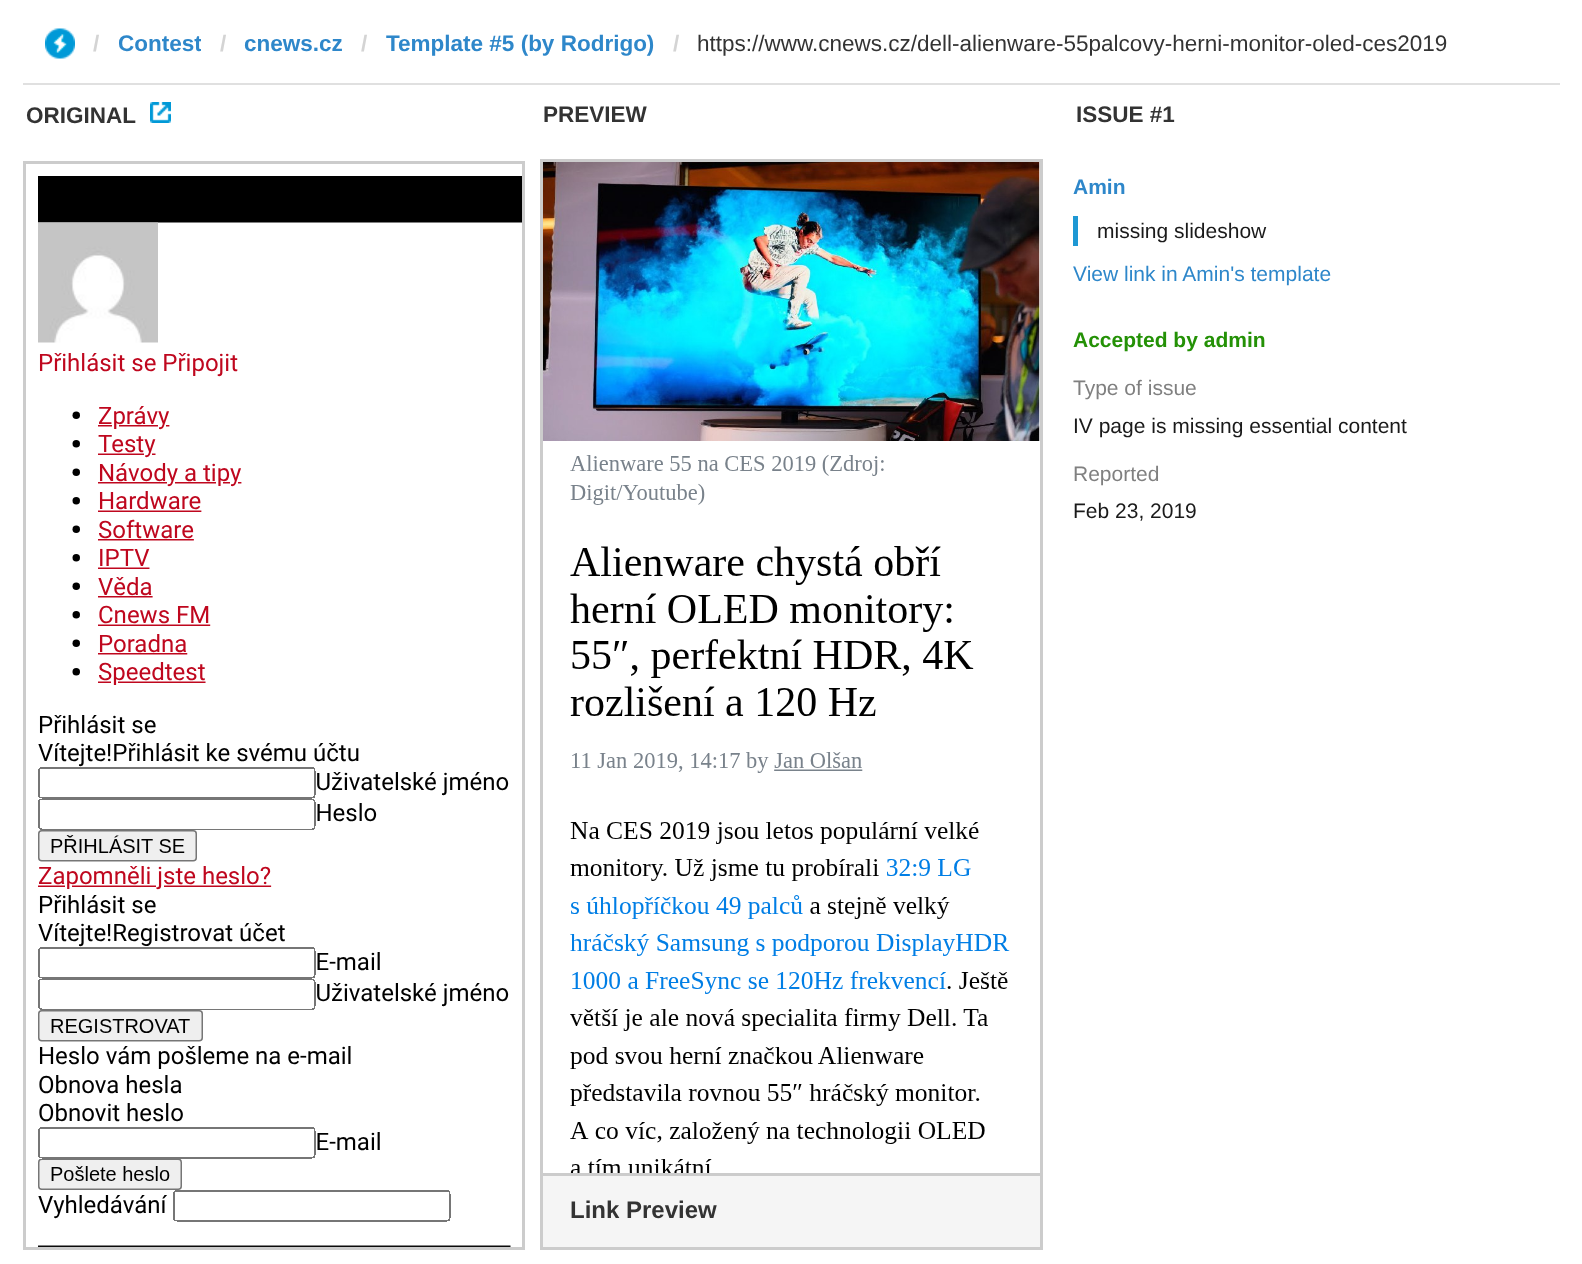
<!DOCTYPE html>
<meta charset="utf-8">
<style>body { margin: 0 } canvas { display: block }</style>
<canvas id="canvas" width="1582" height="1264"></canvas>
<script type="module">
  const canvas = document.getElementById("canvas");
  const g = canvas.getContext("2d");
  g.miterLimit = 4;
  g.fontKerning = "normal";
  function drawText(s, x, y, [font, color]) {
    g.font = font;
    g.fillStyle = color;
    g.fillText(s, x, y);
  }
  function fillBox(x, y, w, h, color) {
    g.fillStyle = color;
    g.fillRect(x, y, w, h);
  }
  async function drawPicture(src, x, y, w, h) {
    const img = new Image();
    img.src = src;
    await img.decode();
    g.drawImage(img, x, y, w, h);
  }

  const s1 = ["bold 22.5px Liberation Sans", "#D4D4D4"];
  const s2 = ["bold 22.5px Liberation Sans", "#2E87CA"];
  const s3 = ["22.5px Liberation Sans", "#333333"];
  const s4 = ["bold 22.5px Liberation Sans", "#333333"];
  const s5 = ["bold 24px Liberation Sans", "#333333"];
  const s6 = ["bold 21px Liberation Sans", "#2E87CA"];
  const s7 = ["21px Liberation Sans", "#1A1A1A"];
  const s8 = ["21px Liberation Sans", "#2E87CA"];
  const s9 = ["bold 21px Liberation Sans", "#249106"];
  const s10 = ["21px Liberation Sans", "#808080"];

  fillBox(0, 0, 1582, 1264, "#FFFFFF");
  fillBox(23, 83, 1537, 2, "#E0E0E0");
  await drawPicture("pic1.png", 45, 28, 30, 31);
  drawText("/", 93, 51, s1);
  g.save();
  g.beginPath();
  g.rect(119, 29, 82, 30);
  g.clip();
  drawText("Contest", 118, 51, s2);
  g.restore();
  drawText("/", 220, 51, s1);
  drawText("cnews.cz", 244, 51, s2);
  drawText("/", 361, 51, s1);
  drawText("Template #5 (by Rodrigo)", 386, 51, s2);
  drawText("/", 673, 51, s1);
  drawText("https://www.cnews.cz/dell-alienware-55palcovy-herni-monitor-oled-ces2019", 697, 51, s3);
  drawText("ORIGINAL", 26, 123, s4);
  await drawPicture("pic2.png", 150, 102, 21, 21);
  g.strokeStyle = "#CCCCCC";
  g.lineWidth = 3;
  g.strokeRect(24.5, 162.5, 499, 1086);
  await drawPicture("pic3.png", 38, 176, 484, 1071);
  drawText("PREVIEW", 543, 122, s4);
  g.strokeRect(541.5, 160.5, 500, 1088);
  await drawPicture("pic4.png", 543, 162, 497, 1011);
  fillBox(543, 1173, 497, 3, "#CCCCCC");
  fillBox(543, 1176, 497, 71, "#F5F5F5");
  drawText("Link Preview", 570, 1218, s5);
  drawText("ISSUE #1", 1076, 122, s4);
  drawText("Amin", 1073, 194, s6);
  fillBox(1073, 216, 5, 30, "#1E98D4");
  drawText("missing slideshow", 1097, 238, s7);
  drawText("View link in Amin's template", 1073, 281, s8);
  drawText("Accepted by admin", 1073, 347, s9);
  drawText("Type of issue", 1073, 395, s10);
  drawText("IV page is missing essential content", 1073, 433, s7);
  drawText("Reported", 1073, 481, s10);
  drawText("Feb 23, 2019", 1073, 518, s7);
</script>
